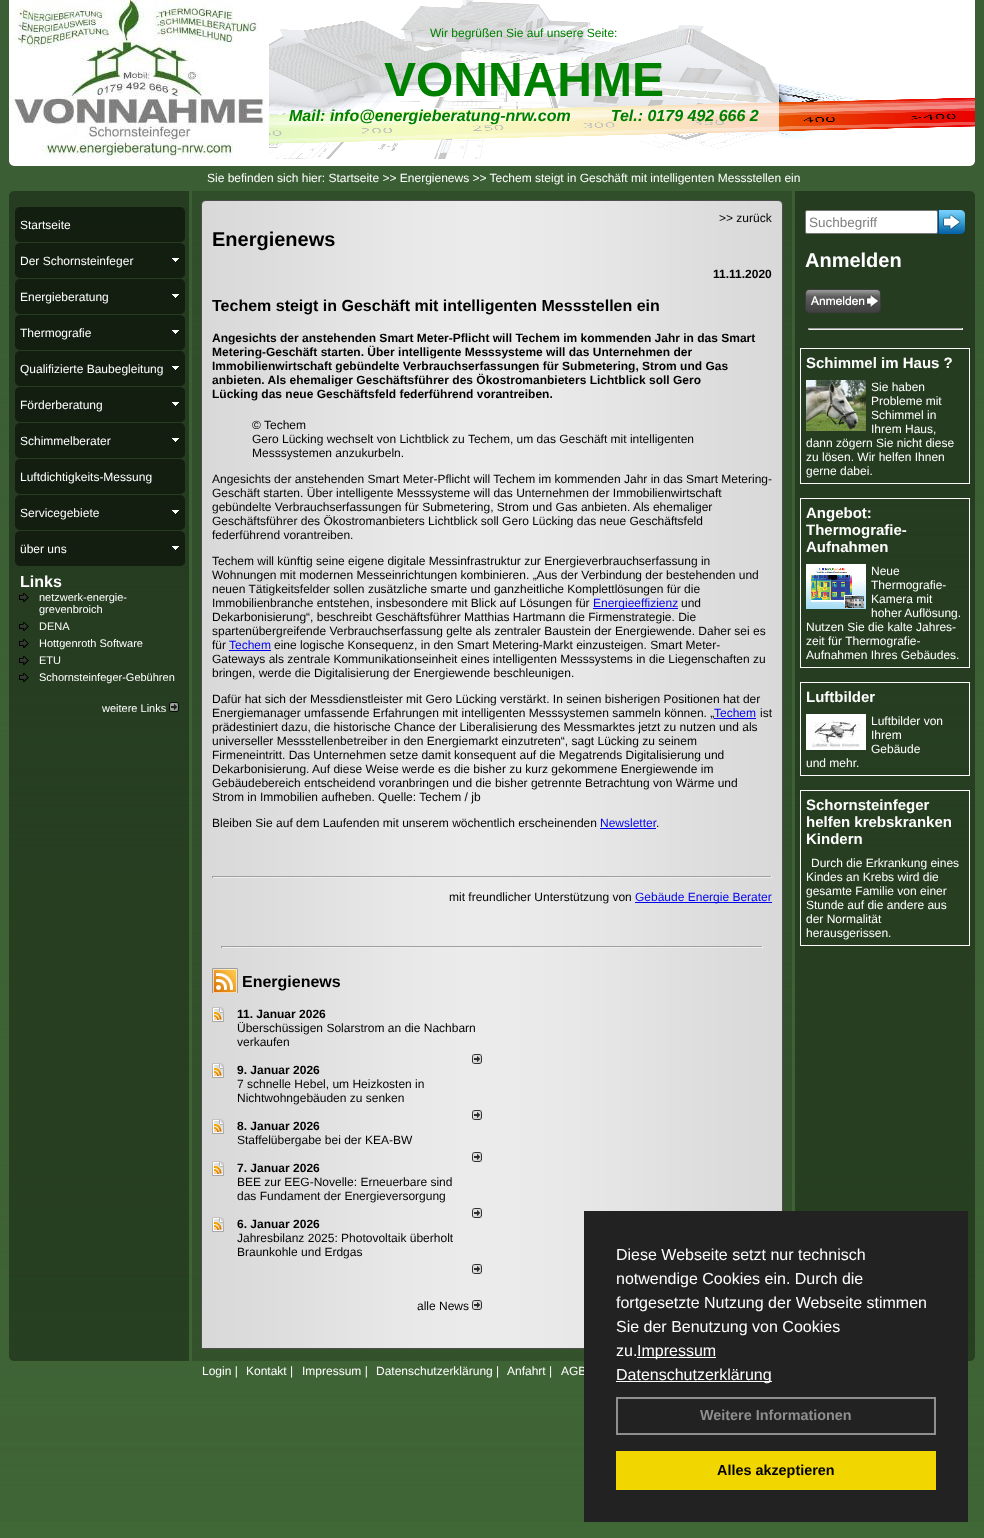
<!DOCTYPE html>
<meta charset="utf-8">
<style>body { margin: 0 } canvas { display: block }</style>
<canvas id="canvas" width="984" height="1538"></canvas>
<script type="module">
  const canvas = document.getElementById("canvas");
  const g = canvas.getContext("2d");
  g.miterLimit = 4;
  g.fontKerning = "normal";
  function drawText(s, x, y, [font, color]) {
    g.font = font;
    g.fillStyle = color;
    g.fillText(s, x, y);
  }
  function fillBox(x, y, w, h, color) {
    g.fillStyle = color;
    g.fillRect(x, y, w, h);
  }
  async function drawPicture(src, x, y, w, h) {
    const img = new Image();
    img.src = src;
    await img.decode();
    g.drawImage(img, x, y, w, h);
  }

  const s1 = ["12px Liberation Sans", "#008000"];
  const s2 = ["bold 48px Liberation Sans", "#008000"];
  const s3 = ["italic bold 16px Liberation Sans", "#008000"];
  const s4 = ["12px Liberation Sans", "#FFFFFF"];
  const s5 = ["bold 16px Liberation Sans", "#FFFFFF"];
  const s6 = ["11px Liberation Sans", "#FFFFFF"];
  const s7 = ["12px Liberation Sans", "#000000"];
  const s8 = ["bold 20px Liberation Sans", "#000000"];
  const s9 = ["bold 12px Liberation Sans", "#000000"];
  const s10 = ["bold 16px Liberation Sans", "#000000"];
  const s11 = ["12px Liberation Sans", "#0000EE"];
  const s12 = ["13.5px Liberation Sans", "#808080"];
  const s13 = ["bold 20px Liberation Sans", "#FFFFFF"];
  const s14 = ["bold 15px Liberation Sans", "#FFFFFF"];
  const s15 = ["16px Liberation Sans", "#FFFFFF"];
  const s16 = ["bold 14.4px Liberation Sans", "#8F8F8F"];
  const s17 = ["bold 14.4px Liberation Sans", "#000000"];

  fillBox(0, 0, 984, 1538, "#406836");
  await drawPicture("pic1.png", 0, 0, 984, 1521);
  await drawPicture("pic2.png", 269, 0, 706, 159);
  fillBox(265, 0, 4, 159, "#FFFFFF");
  await drawPicture("pic3.png", 9, 0, 256, 159);
  fillBox(269, 0, 510, 159, "rgba(255, 255, 255, 0.75)");
  drawText("Wir begrüßen Sie auf unsere Seite:", 430, 37, s1);
  drawText("VONNAHME", 384, 96, s2);
  drawText("Mail: info@energieberatung-nrw.com         Tel.: 0179 492 666 2", 289, 121, s3);
  await drawPicture("pic4.png", 9, 159, 966, 7);
  drawText("Sie befinden sich hier: Startseite >> Energienews >> Techem steigt in Geschäft mit intelligenten Messstellen ein", 207, 182, s4);
  await drawPicture("pic5.png", 9, 191, 180, 15);
  await drawPicture("pic6.png", 192, 191, 600, 15);
  await drawPicture("pic7.png", 795, 191, 180, 15);
  fillBox(9, 206, 180, 1140, "rgba(0, 0, 0, 0.36)");
  await drawPicture("pic8.png", 15, 207, 170, 35);
  drawText("Startseite", 20, 229, s4);
  await drawPicture("pic9.png", 15, 243, 170, 35);
  drawText("Der Schornsteinfeger", 20, 265, s4);
  await drawPicture("pic10.png", 172, 258, 7, 4);
  await drawPicture("pic11.png", 15, 279, 170, 35);
  drawText("Energieberatung", 20, 301, s4);
  await drawPicture("pic10.png", 172, 294, 7, 4);
  await drawPicture("pic12.png", 15, 315, 170, 35);
  drawText("Thermografie", 20, 337, s4);
  await drawPicture("pic10.png", 172, 330, 7, 4);
  await drawPicture("pic13.png", 15, 351, 170, 35);
  drawText("Qualifizierte Baubegleitung", 20, 373, s4);
  await drawPicture("pic10.png", 172, 366, 7, 4);
  await drawPicture("pic14.png", 15, 387, 170, 35);
  drawText("Förderberatung", 20, 409, s4);
  await drawPicture("pic10.png", 172, 402, 7, 4);
  await drawPicture("pic15.png", 15, 423, 170, 35);
  drawText("Schimmelberater", 20, 445, s4);
  await drawPicture("pic10.png", 172, 438, 7, 4);
  await drawPicture("pic16.png", 15, 459, 170, 35);
  drawText("Luftdichtigkeits-Messung", 20, 481, s4);
  await drawPicture("pic17.png", 15, 495, 170, 35);
  drawText("Servicegebiete", 20, 517, s4);
  await drawPicture("pic18.png", 172, 510, 7, 4);
  await drawPicture("pic19.png", 15, 531, 170, 35);
  drawText("über uns", 20, 553, s4);
  await drawPicture("pic18.png", 172, 546, 7, 4);
  drawText("Links", 20, 587, s5);
  await drawPicture("pic20.png", 19, 593, 10, 9);
  drawText("netzwerk-energie-", 39, 601, s6);
  drawText("grevenbroich", 39, 613, s6);
  await drawPicture("pic21.png", 19, 622, 10, 9);
  drawText("DENA", 39, 630, s6);
  await drawPicture("pic22.png", 19, 639, 10, 9);
  drawText("Hottgenroth Software", 39, 647, s6);
  await drawPicture("pic23.png", 19, 656, 10, 9);
  drawText("ETU", 39, 664, s6);
  await drawPicture("pic24.png", 19, 673, 10, 9);
  drawText("Schornsteinfeger-Gebühren", 39, 681, s6);
  drawText("weitere Links", 102, 712, s6);
  await drawPicture("pic25.png", 169, 702, 10, 10);
  await drawPicture("pic26.png", 192, 206, 600, 1140);
  drawText(">> zurück", 719, 222, s7);
  drawText("Energienews", 212, 246, s8);
  drawText("11.11.2020", 713, 278, s9);
  drawText("Techem steigt in Geschäft mit intelligenten Messstellen ein", 212, 311, s10);
  drawText("Angesichts der anstehenden Smart Meter-Pflicht will Techem im kommenden Jahr in das Smart", 212, 342, s9);
  drawText("Metering-Geschäft starten. Über intelligente Messsysteme will das Unternehmen der", 212, 356, s9);
  drawText("Immobilienwirtschaft gebündelte Verbrauchserfassungen für Submetering, Strom und Gas", 212, 370, s9);
  drawText("anbieten. Als ehemaliger Geschäftsführer des Ökostromanbieters Lichtblick soll Gero", 212, 384, s9);
  drawText("Lücking das neue Geschäftsfeld federführend vorantreiben.", 212, 398, s9);
  drawText("© Techem", 252, 429, s7);
  drawText("Gero Lücking wechselt von Lichtblick zu Techem, um das Geschäft mit intelligenten", 252, 443, s7);
  drawText("Messsystemen anzukurbeln.", 252, 457, s7);
  drawText("Angesichts der anstehenden Smart Meter-Pflicht will Techem im kommenden Jahr in das Smart Metering-", 212, 483, s7);
  drawText("Geschäft starten. Über intelligente Messsysteme will das Unternehmen der Immobilienwirtschaft", 212, 497, s7);
  drawText("gebündelte Verbrauchserfassungen für Submetering, Strom und Gas anbieten. Als ehemaliger", 212, 511, s7);
  drawText("Geschäftsführer des Ökostromanbieters Lichtblick soll Gero Lücking das neue Geschäftsfeld", 212, 525, s7);
  drawText("federführend vorantreiben.", 212, 539, s7);
  drawText("Techem will künftig seine eigene digitale Messinfrastruktur zur Energieverbrauchserfassung in", 212, 565, s7);
  drawText("Wohnungen mit modernen Messeinrichtungen kombinieren. „Aus der Verbindung der bestehenden und", 212, 579, s7);
  drawText("neuen Tätigkeitsfelder sollen zusätzliche smarte und ganzheitliche Komplettlösungen für die", 212, 593, s7);
  drawText("Immobilienbranche entstehen, insbesondere mit Blick auf Lösungen für", 212, 607, s7);
  fillBox(593, 608, 85, 1, "#0000EE");
  drawText("Energieeffizienz", 593, 607, s11);
  drawText("und", 681, 607, s7);
  drawText("Dekarbonisierung“, beschreibt Geschäftsführer Matthias Hartmann die Firmenstrategie. Die", 212, 621, s7);
  drawText("spartenübergreifende Verbrauchserfassung gelte als zentraler Baustein der Energiewende. Daher sei es", 212, 635, s7);
  drawText("für", 212, 649, s7);
  drawText("Techem", 229, 649, s11);
  fillBox(229, 650, 42, 1, "#0000EE");
  drawText("eine logische Konsequenz, in den Smart Metering-Markt einzusteigen. Smart Meter-", 274, 649, s7);
  drawText("Gateways als zentrale Kommunikationseinheit eines intelligenten Messsystems in die Liegenschaften zu", 212, 663, s7);
  drawText("bringen, werde die Digitalisierung der Energiewende beschleunigen.", 212, 677, s7);
  drawText("Dafür hat sich der Messdienstleister mit Gero Lücking verstärkt. In seinen bisherigen Positionen hat der", 212, 703, s7);
  drawText("Energiemanager umfassende Erfahrungen mit intelligenten Messsystemen sammeln können. „", 212, 717, s7);
  drawText("Techem", 714, 717, s11);
  fillBox(714, 718, 42, 1, "#0000EE");
  drawText("ist", 760, 717, s7);
  drawText("prädestiniert dazu, die historische Chance der Liberalisierung des Messmarktes jetzt zu nutzen und als", 212, 731, s7);
  drawText("universeller Messstellenbetreiber in den Energiemarkt einzutreten“, sagt Lücking zu seinem", 212, 745, s7);
  drawText("Firmeneintritt. Das Unternehmen setze damit konsequent auf die Megatrends Digitalisierung und", 212, 759, s7);
  drawText("Dekarbonisierung. Auf diese Weise werde es die bisher zu kurz gekommene Energiewende im", 212, 773, s7);
  drawText("Gebäudebereich entscheidend voranbringen und die bisher getrennte Betrachtung von Wärme und", 212, 787, s7);
  drawText("Strom in Immobilien aufheben. Quelle: Techem / jb", 212, 801, s7);
  drawText("Bleiben Sie auf dem Laufenden mit unserem wöchentlich erscheinenden", 212, 827, s7);
  drawText("Newsletter", 600, 827, s11);
  fillBox(600, 828, 56, 1, "#0000EE");
  drawText(".", 656, 827, s7);
  fillBox(212, 876, 560, 1, "#9F9F9F");
  fillBox(771, 876, 1, 2, "#EEEEEE");
  fillBox(212, 877, 560, 1, "#EEEEEE");
  fillBox(212, 876, 1, 2, "#9F9F9F");
  drawText("mit freundlicher Unterstützung von", 449, 901, s7);
  fillBox(635, 902, 137, 1, "#0000EE");
  drawText("Gebäude Energie Berater", 635, 901, s11);
  fillBox(221, 946, 542, 1, "#9F9F9F");
  fillBox(762, 946, 1, 2, "#EEEEEE");
  fillBox(221, 947, 542, 1, "#EEEEEE");
  fillBox(221, 946, 1, 2, "#9F9F9F");
  await drawPicture("pic27.png", 212, 968, 26, 25);
  drawText("Energienews", 242, 987, s10);
  await drawPicture("pic28.png", 212, 1007, 12, 15);
  drawText("11. Januar 2026", 237, 1018, s9);
  drawText("Überschüssigen Solarstrom an die Nachbarn", 237, 1032, s7);
  drawText("verkaufen", 237, 1046, s7);
  await drawPicture("pic29.png", 472, 1054, 10, 10);
  await drawPicture("pic28.png", 212, 1063, 12, 15);
  drawText("9. Januar 2026", 237, 1074, s9);
  drawText("7 schnelle Hebel, um Heizkosten in", 237, 1088, s7);
  drawText("Nichtwohngebäuden zu senken", 237, 1102, s7);
  await drawPicture("pic29.png", 472, 1110, 10, 10);
  await drawPicture("pic28.png", 212, 1119, 12, 15);
  drawText("8. Januar 2026", 237, 1130, s9);
  drawText("Staffelübergabe bei der KEA-BW", 237, 1144, s7);
  await drawPicture("pic29.png", 472, 1152, 10, 10);
  await drawPicture("pic28.png", 212, 1161, 12, 15);
  drawText("7. Januar 2026", 237, 1172, s9);
  drawText("BEE zur EEG-Novelle: Erneuerbare sind", 237, 1186, s7);
  drawText("das Fundament der Energieversorgung", 237, 1200, s7);
  await drawPicture("pic29.png", 472, 1208, 10, 10);
  await drawPicture("pic28.png", 212, 1217, 12, 15);
  drawText("6. Januar 2026", 237, 1228, s9);
  drawText("Jahresbilanz 2025: Photovoltaik überholt", 237, 1242, s7);
  drawText("Braunkohle und Erdgas", 237, 1256, s7);
  await drawPicture("pic29.png", 472, 1264, 10, 10);
  drawText("alle News", 417, 1310, s7);
  await drawPicture("pic29.png", 472, 1300, 10, 10);
  fillBox(795, 206, 180, 1140, "rgba(0, 0, 0, 0.36)");
  g.fillStyle = "#FFFFFF";
  g.beginPath();
  g.roundRect(805.5, 210.5, 132, 23, 1.5);
  g.fill();
  g.strokeStyle = "#767676";
  g.stroke();
  drawText("Suchbegriff", 809, 227, s12);
  await drawPicture("pic30.png", 938, 210, 27, 24);
  drawText("Anmelden", 805, 267, s13);
  await drawPicture("pic31.png", 805, 289, 76, 24);
  fillBox(808, 328, 155, 1, "#9F9F9F");
  fillBox(962, 328, 1, 2, "#EEEEEE");
  fillBox(808, 329, 155, 1, "#EEEEEE");
  fillBox(808, 328, 1, 2, "#9F9F9F");
  g.strokeStyle = "#FFFFFF";
  g.strokeRect(800.5, 348.5, 169, 135);
  drawText("Schimmel im Haus ?", 806, 368, s14);
  await drawPicture("pic32.png", 806, 380, 60, 51);
  drawText("Sie haben", 871, 391, s4);
  drawText("Probleme mit", 871, 405, s4);
  drawText("Schimmel in", 871, 419, s4);
  drawText("Ihrem Haus,", 871, 433, s4);
  drawText("dann zögern Sie nicht diese", 806, 447, s4);
  drawText("zu lösen. Wir helfen Ihnen", 806, 461, s4);
  drawText("gerne dabei.", 806, 475, s4);
  g.strokeRect(800.5, 498.5, 169, 169);
  drawText("Angebot:", 806, 518, s14);
  drawText("Thermografie-", 806, 535, s14);
  drawText("Aufnahmen", 806, 552, s14);
  await drawPicture("pic33.png", 806, 564, 60, 45);
  drawText("Neue", 871, 575, s4);
  drawText("Thermografie-", 871, 589, s4);
  drawText("Kamera mit", 871, 603, s4);
  drawText("hoher Auflösung.", 871, 617, s4);
  drawText("Nutzen Sie die kalte Jahres-", 806, 631, s4);
  drawText("zeit für Thermografie-", 806, 645, s4);
  drawText("Aufnahmen Ihres Gebäudes.", 806, 659, s4);
  g.strokeRect(800.5, 682.5, 169, 93);
  drawText("Luftbilder", 806, 702, s14);
  await drawPicture("pic34.png", 806, 714, 60, 36);
  drawText("Luftbilder von", 871, 725, s4);
  drawText("Ihrem", 871, 739, s4);
  drawText("Gebäude", 871, 753, s4);
  drawText("und mehr.", 806, 767, s4);
  g.strokeRect(800.5, 790.5, 169, 155);
  drawText("Schornsteinfeger", 806, 810, s14);
  drawText("helfen krebskranken", 806, 827, s14);
  drawText("Kindern", 806, 844, s14);
  drawText("Durch die Erkrankung eines", 811, 867, s4);
  drawText("Kindes an Krebs wird die", 806, 881, s4);
  drawText("gesamte Familie von einer", 806, 895, s4);
  drawText("Stunde auf die andere aus", 806, 909, s4);
  drawText("der Normalität", 806, 923, s4);
  drawText("herausgerissen.", 806, 937, s4);
  await drawPicture("pic35.png", 9, 1346, 180, 15);
  await drawPicture("pic36.png", 192, 1346, 392, 15);
  await drawPicture("pic37.png", 968, 1346, 7, 15);
  drawText("Login |", 202, 1375, s4);
  drawText("Kontakt |", 246, 1375, s4);
  drawText("Impressum |", 302, 1375, s4);
  drawText("Datenschutzerklärung |", 376, 1375, s4);
  drawText("Anfahrt |", 507, 1375, s4);
  drawText("AGB", 561, 1375, s4);
  fillBox(584, 1211, 384, 311, "#222222");
  drawText("Diese Webseite setzt nur technisch", 616, 1260, s15);
  drawText("notwendige Cookies ein. Durch die", 616, 1284, s15);
  drawText("fortgesetzte Nutzung der Webseite stimmen", 616, 1308, s15);
  drawText("Sie der Benutzung von Cookies", 616, 1332, s15);
  drawText("zu.", 616, 1356, s15);
  fillBox(637, 1357, 79, 1, "#FFFFFF");
  drawText("Impressum", 637, 1356, s15);
  fillBox(616, 1381, 156, 1, "#FFFFFF");
  drawText("Datenschutzerklärung", 616, 1380, s15);
  g.strokeStyle = "#8F8F8F";
  g.lineWidth = 2;
  g.strokeRect(617, 1398, 318, 36);
  drawText("Weitere Informationen", 700, 1420, s16);
  fillBox(616, 1451, 320, 39, "#F1D600");
  drawText("Alles akzeptieren", 717, 1475, s17);
</script>
